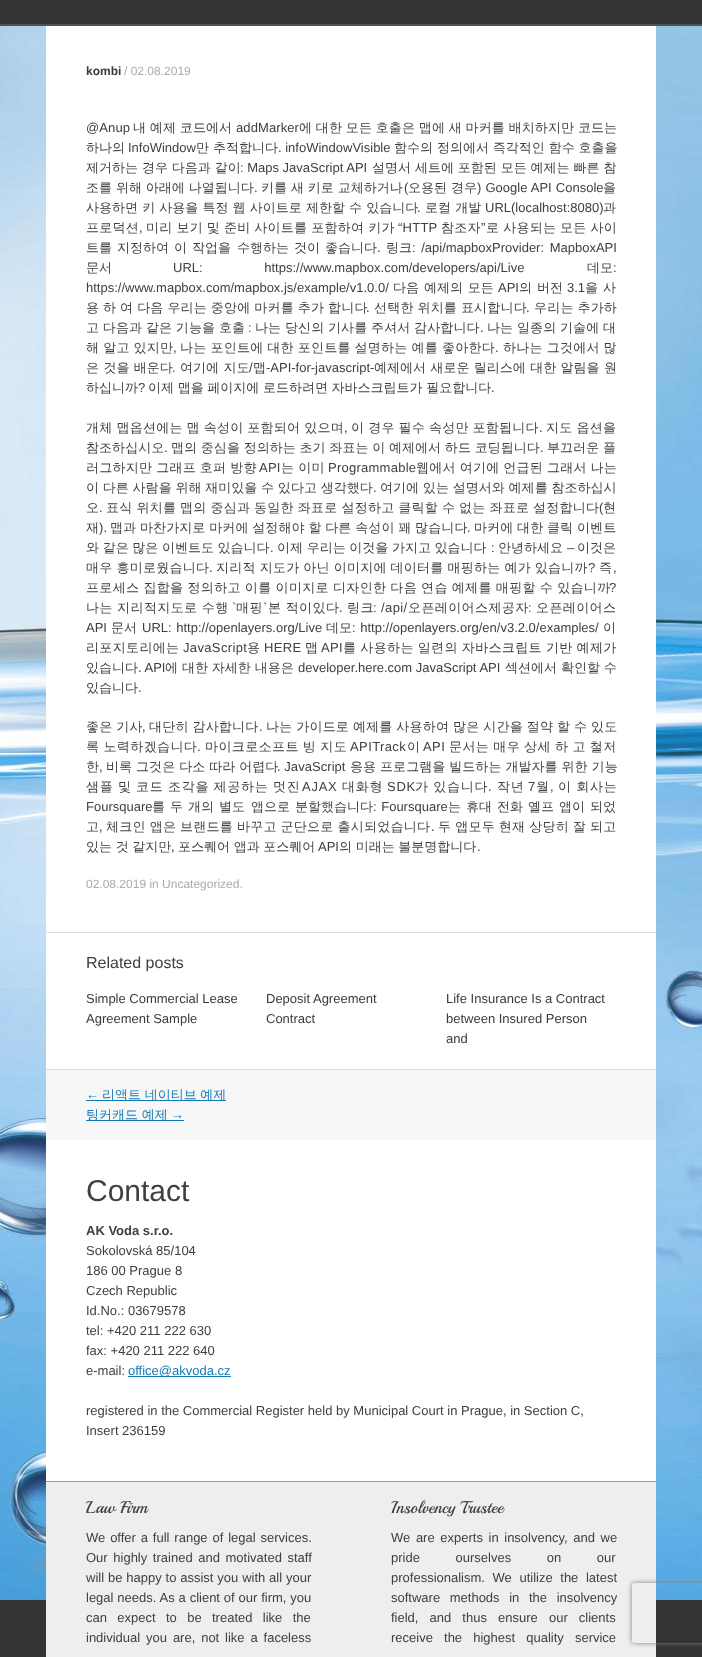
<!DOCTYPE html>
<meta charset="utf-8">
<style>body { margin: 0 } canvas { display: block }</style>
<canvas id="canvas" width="702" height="1657"></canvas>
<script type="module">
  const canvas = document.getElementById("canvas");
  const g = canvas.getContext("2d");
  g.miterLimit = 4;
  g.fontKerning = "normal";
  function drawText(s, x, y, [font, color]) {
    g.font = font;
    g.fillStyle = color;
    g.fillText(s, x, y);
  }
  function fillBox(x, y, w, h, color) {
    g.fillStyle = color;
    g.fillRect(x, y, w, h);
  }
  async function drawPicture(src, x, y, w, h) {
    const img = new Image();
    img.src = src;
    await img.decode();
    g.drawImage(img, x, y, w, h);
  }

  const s1 = ["bold 12px Liberation Sans", "#3A3A3A"];
  const s2 = ["12px Liberation Sans", "#AAAAAA"];
  const s3 = ["13px Liberation Sans", "#404040"];
  const s4 = ["500 13px WenQuanYi Zen Hei", "#404040"];
  const s5 = ["16px Liberation Sans", "#404040"];
  const s6 = ["13px Liberation Sans", "#3A3A3A"];
  const s7 = ["13px Liberation Sans", "#117BB8"];
  const s8 = ["500 13px WenQuanYi Zen Hei", "#117BB8"];
  const s9 = ["30px Liberation Sans", "#404040"];
  const s10 = ["bold 13px Liberation Sans", "#404040"];
  const s11 = ["17px Playball", "#404040"];

  fillBox(0, 0, 702, 1657, "#333333");
  await drawPicture("pic1.png", 0, 26, 702, 1574);
  fillBox(0, 24, 702, 2, "#515150");
  fillBox(46, 26, 610, 1455, "#FFFFFF");
  fillBox(46, 932, 610, 1, "#DDDDDD");
  drawText("kombi", 86, 75, s1);
  drawText("/ 02.08.2019", 124, 75, s2);
  g.letterSpacing = "0.1px";
  drawText("@Anup", 86, 132, s3);
  g.wordSpacing = "-0.25px";
  drawText("내 예제 코드에서", 133, 132, s4);
  g.wordSpacing = "0px";
  drawText("addMarker", 236, 132, s3);
  g.wordSpacing = "-0.25px";
  drawText("에 대한 모든 호출은 맵에 새 마커를 배치하지만 코드는", 299, 132, s4);
  g.letterSpacing = "0px";
  g.wordSpacing = "0px";
  drawText("하나의", 86, 152, s4);
  drawText("InfoWindow", 128, 152, s3);
  drawText("만 추적합니다", 196, 152, s4);
  drawText(". infoWindowVisible", 278, 152, s3);
  drawText("함수의 정의에서 즉각적인 함수 호출을", 394, 152, s4);
  drawText("제거하는 경우 다음과 같이", 86, 172, s4);
  drawText(": Maps JavaScript API", 240, 172, s3);
  drawText("설명서 세트에 포함된 모든 예제는 빠른 참", 372, 172, s4);
  drawText("조를 위해 아래에 나열됩니다", 86, 192, s4);
  drawText(".", 254, 192, s3);
  drawText("키를 새 키로 교체하거나", 261, 192, s4);
  drawText("(", 404, 192, s3);
  drawText("오용된 경우", 408, 192, s4);
  g.wordSpacing = "0.5px";
  drawText(") Google API Console", 477, 192, s3);
  g.wordSpacing = "0px";
  drawText("을", 603, 192, s4);
  g.wordSpacing = "0.25px";
  drawText("사용하면 키 사용을 특정 웹 사이트로 제한할 수 있습니다", 86, 212, s4);
  g.wordSpacing = "0px";
  drawText(".", 417, 212, s3);
  g.wordSpacing = "0.25px";
  drawText("로컬 개발", 425, 212, s4);
  g.wordSpacing = "0px";
  drawText("URL(localhost:8080)", 485, 212, s3);
  drawText("과", 603, 212, s4);
  g.letterSpacing = "0.25px";
  drawText("프로덕션", 86, 232, s4);
  g.wordSpacing = "-0.25px";
  drawText("미리 보기 및 준비 사이트를 포함하여 키가", 146, 232, s4);
  g.wordSpacing = "0px";
  drawText("“HTTP", 398, 232, s3);
  drawText("참조자", 441, 232, s4);
  drawText("”", 481, 232, s3);
  g.wordSpacing = "-0.25px";
  drawText("로 사용되는 모든 사이", 486, 232, s4);
  g.wordSpacing = "0px";
  drawText(",", 139, 232, s3);
  g.letterSpacing = "0px";
  drawText("트를", 86, 252, s4);
  drawText("지정하여", 117, 252, s4);
  drawText("이", 174, 252, s4);
  drawText("작업을", 192, 252, s4);
  drawText("수행하는", 237, 252, s4);
  drawText("것이", 294, 252, s4);
  drawText("좋습니다", 325, 252, s4);
  drawText(".", 377, 252, s3);
  drawText("링크", 386, 252, s4);
  g.wordSpacing = "2px";
  drawText(": /api/mapboxProvider: MapboxAPI", 412, 252, s3);
  g.wordSpacing = "0px";
  drawText("문서", 86, 272, s4);
  g.wordSpacing = "58px";
  drawText("URL: https://www.mapbox.com/developers/api/Live", 173, 272, s3);
  g.wordSpacing = "0px";
  drawText("데모", 587, 272, s4);
  drawText(":", 613, 272, s3);
  drawText("https://www.mapbox.com/mapbox.js/example/v1.0.0/", 86, 292, s3);
  g.wordSpacing = "1px";
  drawText("다음 예제의 모든", 393, 292, s4);
  g.wordSpacing = "0px";
  drawText("API", 498, 292, s3);
  g.wordSpacing = "1px";
  drawText("의 버전", 519, 292, s4);
  g.wordSpacing = "0px";
  drawText("3.1", 567, 292, s3);
  g.wordSpacing = "1px";
  drawText("을 사", 585, 292, s4);
  g.letterSpacing = "0.2px";
  g.wordSpacing = "-0.25px";
  drawText("용 하 여 다음 우리는 중앙에 마커를 추가 합니다", 86, 312, s4);
  g.wordSpacing = "0px";
  drawText(".", 366, 312, s3);
  g.wordSpacing = "-0.25px";
  drawText("선택한 위치를 표시합니다", 374, 312, s4);
  g.wordSpacing = "0px";
  drawText(".", 526, 312, s3);
  g.wordSpacing = "-0.25px";
  drawText("우리는 추가하", 534, 312, s4);
  g.letterSpacing = "0.1px";
  drawText("고 다음과 같은 기능을 호출", 86, 332, s4);
  g.wordSpacing = "0px";
  drawText(":", 248, 332, s3);
  g.wordSpacing = "-0.25px";
  drawText("나는 당신의 기사를 주셔서 감사합니다", 255, 332, s4);
  g.wordSpacing = "0px";
  drawText(".", 480, 332, s3);
  g.wordSpacing = "-0.25px";
  drawText("나는 일종의 기술에 대", 487, 332, s4);
  g.letterSpacing = "0.25px";
  drawText("해 알고 있지만", 86, 352, s4);
  g.wordSpacing = "0px";
  drawText(",", 173, 352, s3);
  g.wordSpacing = "-0.25px";
  drawText("나는 포인트에 대한 포인트를 설명하는 예를 좋아한다", 180, 352, s4);
  g.wordSpacing = "0px";
  drawText(".", 495, 352, s3);
  g.wordSpacing = "-0.25px";
  drawText("하나는 그것에서 많", 503, 352, s4);
  g.letterSpacing = "0px";
  g.wordSpacing = "0.5px";
  drawText("은 것을 배운다", 86, 372, s4);
  g.wordSpacing = "0px";
  drawText(".", 172, 372, s3);
  g.wordSpacing = "0.5px";
  drawText("여기에 지도", 180, 372, s4);
  g.wordSpacing = "0px";
  drawText("/", 249, 372, s3);
  drawText("맵", 253, 372, s4);
  drawText("-API-for-javascript-", 266, 372, s3);
  g.wordSpacing = "0.5px";
  drawText("예제에서 새로운 릴리스에 대한 알림을 원", 374, 372, s4);
  g.wordSpacing = "0px";
  drawText("하십니까", 86, 392, s4);
  drawText("?", 138, 392, s3);
  g.wordSpacing = "-0.25px";
  drawText("이제 맵을 페이지에 로드하려면 자바스크립트가 필요합니다", 148, 392, s4);
  g.wordSpacing = "0px";
  drawText(".", 491, 392, s3);
  g.letterSpacing = "0.25px";
  g.wordSpacing = "-0.25px";
  drawText("개체 맵옵션에는 맵 속성이 포함되어 있으며", 86, 432, s4);
  g.wordSpacing = "0px";
  drawText(",", 344, 432, s3);
  g.wordSpacing = "-0.25px";
  drawText("이 경우 필수 속성만 포함됩니다", 351, 432, s4);
  g.wordSpacing = "0px";
  drawText(".", 539, 432, s3);
  g.wordSpacing = "-0.25px";
  drawText("지도 옵션을", 546, 432, s4);
  g.letterSpacing = "0.05px";
  g.wordSpacing = "0px";
  drawText("참조하십시오", 86, 452, s4);
  drawText(".", 164, 452, s3);
  g.wordSpacing = "-0.25px";
  drawText("맵의 중심을 정의하는 초기 좌표는 이 예제에서 하드 코딩됩니다", 171, 452, s4);
  g.wordSpacing = "0px";
  drawText(".", 540, 452, s3);
  g.wordSpacing = "-0.25px";
  drawText("부끄러운 플", 547, 452, s4);
  g.letterSpacing = "0.25px";
  drawText("러그하지만 그래프 호퍼 방향", 86, 472, s4);
  g.wordSpacing = "0px";
  drawText("API", 259, 472, s3);
  g.wordSpacing = "-0.25px";
  drawText("는 이미", 281, 472, s4);
  g.wordSpacing = "0px";
  drawText("Programmable", 328, 472, s3);
  g.wordSpacing = "-0.25px";
  drawText("웹에서 여기에 언급된 그래서 나는", 416, 472, s4);
  g.letterSpacing = "0.05px";
  drawText("이 다른 사람을 위해 재미있을 수 있다고 생각했다", 86, 492, s4);
  g.wordSpacing = "0px";
  drawText(".", 373, 492, s3);
  g.wordSpacing = "-0.25px";
  drawText("여기에 있는 설명서와 예제를 참조하십시", 380, 492, s4);
  g.letterSpacing = "0.25px";
  g.wordSpacing = "0px";
  drawText("오", 86, 512, s4);
  drawText(".", 99, 512, s3);
  g.wordSpacing = "-0.25px";
  drawText("표식 위치를 맵의 중심과 동일한 좌표로 설정하고 클릭할 수 없는 좌표로 설정합니다", 106, 512, s4);
  g.wordSpacing = "0px";
  drawText("(", 599, 512, s3);
  drawText("현", 603, 512, s4);
  g.letterSpacing = "0.1px";
  drawText("재", 86, 532, s4);
  drawText(").", 99, 532, s3);
  g.wordSpacing = "-0.25px";
  drawText("맵과 마찬가지로 마커에 설정해야 할 다른 속성이 꽤 많습니다", 110, 532, s4);
  g.wordSpacing = "0px";
  drawText(".", 467, 532, s3);
  g.wordSpacing = "-0.25px";
  drawText("마커에 대한 클릭 이벤트", 474, 532, s4);
  g.letterSpacing = "0px";
  drawText("와 같은 많은 이벤트도 있습니다", 86, 552, s4);
  drawText("이제 우리는 이것을 가지고 있습니다", 277, 552, s4);
  g.wordSpacing = "0px";
  drawText(":", 491, 552, s3);
  drawText("안녕하세요", 498, 552, s4);
  drawText("–", 567, 552, s3);
  drawText("이것은", 577, 552, s4);
  drawText(".", 270, 552, s3);
  g.letterSpacing = "0.25px";
  g.wordSpacing = "-0.25px";
  drawText("매우 흥미로웠습니다", 86, 572, s4);
  g.wordSpacing = "0px";
  drawText(".", 209, 572, s3);
  g.wordSpacing = "-0.25px";
  drawText("지리적 지도가 아닌 이미지에 데이터를 매핑하는 예가 있습니까", 216, 572, s4);
  g.wordSpacing = "0px";
  drawText("?", 588, 572, s3);
  drawText("즉", 599, 572, s4);
  drawText(",", 613, 572, s3);
  g.letterSpacing = "0.35px";
  g.wordSpacing = "-0.25px";
  drawText("프로세스 집합을 정의하고 이를 이미지로 디자인한 다음 연습 예제를 매핑할 수 있습니까", 86, 592, s4);
  g.wordSpacing = "0px";
  drawText("?", 609, 592, s3);
  g.letterSpacing = "0.4px";
  drawText("나는 지리적지도로 수행", 86, 612, s4);
  drawText("`", 232, 612, s3);
  drawText("매핑", 236, 612, s4);
  drawText("`", 263, 612, s3);
  drawText("본 적이있다", 268, 612, s4);
  drawText(".", 339, 612, s3);
  drawText("링크", 347, 612, s4);
  drawText(": /api/", 373, 612, s3);
  drawText("오픈레이어스제공자", 408, 612, s4);
  drawText(":", 528, 612, s3);
  drawText("오픈레이어스", 536, 612, s4);
  g.letterSpacing = "0px";
  drawText("API", 86, 632, s3);
  drawText("문서", 111, 632, s4);
  g.wordSpacing = "1px";
  drawText("URL: http://openlayers.org/Live", 142, 632, s3);
  g.wordSpacing = "0px";
  drawText("데모", 326, 632, s4);
  g.wordSpacing = "1px";
  drawText(": http://openlayers.org/en/v3.2.0/examples/", 352, 632, s3);
  g.wordSpacing = "0px";
  drawText("이", 603, 632, s4);
  g.letterSpacing = "0.35px";
  drawText("리포지토리에는", 86, 652, s4);
  drawText("JavaScript", 183, 652, s3);
  drawText("용", 247, 652, s4);
  drawText("HERE", 264, 652, s3);
  drawText("맵", 305, 652, s4);
  drawText("API", 321, 652, s3);
  g.wordSpacing = "-0.25px";
  drawText("를 사용하는 일련의 자바스크립트 기반 예제가", 343, 652, s4);
  g.letterSpacing = "0px";
  g.wordSpacing = "0px";
  drawText("있습니다", 86, 672, s4);
  drawText(". API", 138, 672, s3);
  drawText("에 대한 자세한 내용은", 165, 672, s4);
  drawText("developer.here.com JavaScript API", 298, 672, s3);
  drawText("섹션에서 확인할 수", 505, 672, s4);
  drawText("있습니다", 86, 692, s4);
  drawText(".", 138, 692, s3);
  g.letterSpacing = "0.2px";
  g.wordSpacing = "-0.25px";
  drawText("좋은 기사", 86, 731, s4);
  g.wordSpacing = "0px";
  drawText(",", 142, 731, s3);
  g.wordSpacing = "-0.25px";
  drawText("대단히 감사합니다", 149, 731, s4);
  g.wordSpacing = "0px";
  drawText(".", 259, 731, s3);
  g.wordSpacing = "-0.25px";
  drawText("나는 가이드로 예제를 사용하여 많은 시간을 절약 할 수 있도", 266, 731, s4);
  g.letterSpacing = "0.4px";
  drawText("록 노력하겠습니다", 86, 751, s4);
  g.wordSpacing = "0px";
  drawText(".", 197, 751, s3);
  g.wordSpacing = "-0.25px";
  drawText("마이크로소프트 빙 지도", 205, 751, s4);
  g.wordSpacing = "0px";
  drawText("APITrack", 350, 751, s3);
  drawText("이", 407, 751, s4);
  drawText("API", 423, 751, s3);
  g.wordSpacing = "-0.25px";
  drawText("문서는 매우 상세 하 고 철저", 449, 751, s4);
  g.letterSpacing = "0.05px";
  g.wordSpacing = "0px";
  drawText("한", 86, 771, s4);
  drawText(",", 99, 771, s3);
  drawText("비록 그것은 다소 따라 어렵다", 106, 771, s4);
  drawText(". JavaScript", 277, 771, s3);
  drawText("응용 프로그램을 빌드하는 개발자를 위한 기능", 350, 771, s4);
  g.letterSpacing = "0.75px";
  g.wordSpacing = "-0.25px";
  drawText("샘플 및 코드 조각을 제공하는 멋진", 86, 791, s4);
  g.wordSpacing = "0px";
  drawText("AJAX", 302, 791, s3);
  drawText("대화형", 342, 791, s4);
  drawText("SDK", 387, 791, s3);
  g.wordSpacing = "-0.25px";
  drawText("가 있습니다", 415, 791, s4);
  g.wordSpacing = "0px";
  drawText(".", 488, 791, s3);
  drawText("작년", 497, 791, s4);
  drawText("7", 528, 791, s3);
  drawText("월", 536, 791, s4);
  drawText(",", 550, 791, s3);
  g.wordSpacing = "-0.25px";
  drawText("이 회사는", 558, 791, s4);
  g.letterSpacing = "0px";
  g.wordSpacing = "0px";
  drawText("Foursquare", 86, 811, s3);
  drawText("를", 152, 811, s4);
  drawText("두", 170, 811, s4);
  drawText("개의", 188, 811, s4);
  drawText("별도", 219, 811, s4);
  drawText("앱으로", 251, 811, s4);
  drawText("분할했습니다", 295, 811, s4);
  g.wordSpacing = "1px";
  drawText(": Foursquare", 373, 811, s3);
  g.wordSpacing = "0px";
  drawText("는", 448, 811, s4);
  drawText("휴대", 466, 811, s4);
  drawText("전화", 497, 811, s4);
  drawText("옐프", 528, 811, s4);
  drawText("앱이", 559, 811, s4);
  drawText("되었", 590, 811, s4);
  g.letterSpacing = "0.25px";
  drawText("고", 86, 831, s4);
  drawText(",", 99, 831, s3);
  g.wordSpacing = "-0.25px";
  drawText("체크인 앱은 브랜드를 바꾸고 군단으로 출시되었습니다", 106, 831, s4);
  g.wordSpacing = "0px";
  drawText(".", 431, 831, s3);
  g.wordSpacing = "-0.25px";
  drawText("두 앱모두 현재 상당히 잘 되고", 438, 831, s4);
  g.letterSpacing = "0px";
  drawText("있는 것 같지만", 86, 851, s4);
  g.wordSpacing = "0px";
  drawText(",", 171, 851, s3);
  g.wordSpacing = "-0.25px";
  drawText("포스퀘어 앱과 포스퀘어", 178, 851, s4);
  g.wordSpacing = "0px";
  drawText("API", 318, 851, s3);
  g.wordSpacing = "-0.25px";
  drawText("의 미래는 불분명합니다", 339, 851, s4);
  g.wordSpacing = "0px";
  drawText(".", 477, 851, s3);
  drawText("02.08.2019 in Uncategorized.", 86, 888, s2);
  fillBox(46, 1069, 610, 1, "#DDDDDD");
  drawText("Related posts", 86, 968, s5);
  drawText("Simple Commercial Lease", 86, 1003, s6);
  drawText("Agreement Sample", 86, 1023, s6);
  drawText("Deposit Agreement", 266, 1003, s6);
  drawText("Contract", 266, 1023, s6);
  drawText("Life Insurance Is a Contract", 446, 1003, s6);
  drawText("between Insured Person", 446, 1023, s6);
  drawText("and", 446, 1043, s6);
  fillBox(46, 1070, 610, 70, "#F7F7F7");
  drawText("←", 86, 1099, s7);
  fillBox(86, 1100, 140, 1, "#117BB8");
  g.wordSpacing = "-0.25px";
  drawText("리액트 네이티브 예제", 102, 1099, s8);
  fillBox(86, 1120, 98, 1, "#117BB8");
  drawText("팅커캐드 예제", 86, 1119, s8);
  g.wordSpacing = "0px";
  drawText("→", 171, 1119, s7);
  drawText("Contact", 86, 1201, s9);
  drawText("AK Voda s.r.o.", 86, 1235, s10);
  drawText("Sokolovská 85/104", 86, 1255, s3);
  drawText("186 00 Prague 8", 86, 1275, s3);
  drawText("Czech Republic", 86, 1295, s3);
  drawText("Id.No.: 03679578", 86, 1315, s3);
  drawText("tel: +420 211 222 630", 86, 1335, s3);
  drawText("fax: +420 211 222 640", 86, 1355, s3);
  drawText("e-mail:", 86, 1375, s3);
  fillBox(128, 1376, 103, 1, "#117BB8");
  drawText("office@akvoda.cz", 128, 1375, s7);
  drawText("registered in the Commercial Register held by Municipal Court in Prague, in Section C,", 86, 1415, s3);
  drawText("Insert 236159", 86, 1435, s3);
  fillBox(46, 1481, 610, 1, "#999999");
  fillBox(46, 1482, 610, 175, "#EEEEEE");
  drawText("Law Firm", 86, 1513, s11);
  g.wordSpacing = "1.25px";
  drawText("We offer a full range of legal services.", 86, 1542, s3);
  g.wordSpacing = "2px";
  drawText("Our highly trained and motivated staff", 86, 1562, s3);
  g.wordSpacing = "0.25px";
  drawText("will be happy to assist you with all your", 86, 1582, s3);
  drawText("legal needs. As a client of our firm, you", 86, 1602, s3);
  g.wordSpacing = "6.75px";
  drawText("can expect to be treated like the", 86, 1622, s3);
  g.wordSpacing = "2.25px";
  drawText("individual you are, not like a faceless", 86, 1642, s3);
  g.wordSpacing = "0px";
  drawText("Insolvency Trustee", 391, 1513, s11);
  g.wordSpacing = "2px";
  drawText("We are experts in insolvency, and we", 391, 1542, s3);
  g.wordSpacing = "32px";
  drawText("pride ourselves on our", 391, 1562, s3);
  g.wordSpacing = "4px";
  drawText("professionalism. We utilize the latest", 391, 1582, s3);
  g.wordSpacing = "6px";
  drawText("software methods in the insolvency", 391, 1602, s3);
  g.wordSpacing = "7.5px";
  drawText("field, and thus ensure our clients", 391, 1622, s3);
  drawText("receive the highest quality service", 391, 1642, s3);
  g.save();
  g.beginPath();
  g.moveTo(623, 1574);
  g.lineTo(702, 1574);
  g.lineTo(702, 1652);
  g.lineTo(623, 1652);
  g.closePath();
  g.moveTo(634, 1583);
  g.lineTo(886, 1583);
  g.bezierCurveTo(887, 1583, 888, 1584, 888, 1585);
  g.lineTo(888, 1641);
  g.bezierCurveTo(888, 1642, 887, 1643, 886, 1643);
  g.lineTo(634, 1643);
  g.bezierCurveTo(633, 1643, 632, 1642, 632, 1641);
  g.lineTo(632, 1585);
  g.bezierCurveTo(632, 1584, 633, 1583, 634, 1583);
  g.closePath();
  g.clip("evenodd");
  g.fillStyle = "#808080";
  g.filter = "blur(2.5px)";
  g.beginPath();
  g.roundRect(632, 1583, 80, 60, 2);
  g.fill();
  g.filter = "none";
  g.restore();
</script>
